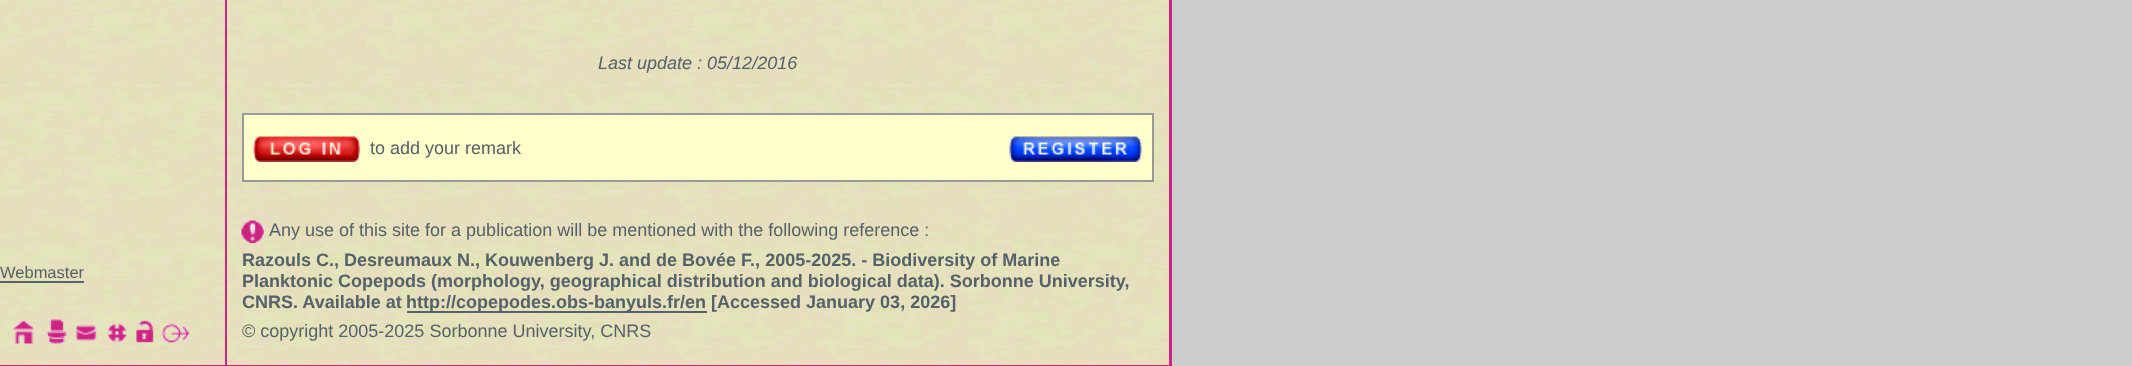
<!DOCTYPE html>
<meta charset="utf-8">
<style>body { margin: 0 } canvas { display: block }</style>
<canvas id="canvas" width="2132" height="366"></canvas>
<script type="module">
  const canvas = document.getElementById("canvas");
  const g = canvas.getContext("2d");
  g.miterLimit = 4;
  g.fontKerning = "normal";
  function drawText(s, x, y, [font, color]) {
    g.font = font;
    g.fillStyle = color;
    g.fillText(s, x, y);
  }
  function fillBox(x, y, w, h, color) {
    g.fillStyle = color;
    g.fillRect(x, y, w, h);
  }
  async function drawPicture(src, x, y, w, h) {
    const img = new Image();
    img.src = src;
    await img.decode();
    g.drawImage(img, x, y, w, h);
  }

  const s1 = ["16.5px Liberation Sans", "#556268"];
  const s2 = ["italic 18px Liberation Sans", "#556268"];
  const s3 = ["18px Liberation Sans", "#556268"];
  const s4 = ["bold 18px Liberation Sans", "#556268"];

  fillBox(0, 0, 2132, 366, "#CCCCCC");
  await drawPicture("pic1.png", 0, 0, 1169, 365);
  drawText("Webmaster", 0, 278, s1);
  fillBox(0, 281, 84, 2, "#556268");
  await drawPicture("pic2.png", 13, 319, 177, 25);
  fillBox(1169, 177, 3, 188, "#CD2481");
  fillBox(225, 0, 2, 365, "#CD2481");
  drawText("Last update : 05/12/2016", 598, 69, s2);
  fillBox(242, 113, 912, 2, "#999999");
  fillBox(1152, 113, 2, 69, "#999999");
  fillBox(242, 180, 912, 2, "#999999");
  fillBox(242, 113, 2, 69, "#999999");
  fillBox(244, 115, 908, 65, "#FFFFCC");
  await drawPicture("pic3.png", 253, 136, 107, 26);
  drawText("to add your remark", 370, 154, s3);
  await drawPicture("pic4.png", 1009, 136, 133, 26);
  await drawPicture("pic5.png", 241, 220, 23, 23);
  drawText("Any use of this site for a publication will be mentioned with the following reference :", 269, 236, s3);
  drawText("Razouls C., Desreumaux N., Kouwenberg J. and de Bovée F., 2005-2025. - Biodiversity of Marine", 242, 266, s4);
  drawText("Planktonic Copepods (morphology, geographical distribution and biological data). Sorbonne University,", 242, 287, s4);
  drawText("CNRS. Available at", 242, 308, s4);
  fillBox(407, 311, 300, 2, "#556268");
  drawText("http://copepodes.obs-banyuls.fr/en [Accessed January 03, 2026]", 406, 308, s4);
  drawText("© copyright 2005-2025 Sorbonne University, CNRS", 242, 337, s3);
  fillBox(1169, 0, 3, 177, "#CD2481");
  fillBox(0, 365, 1172, 1, "#CD2481");
</script>
